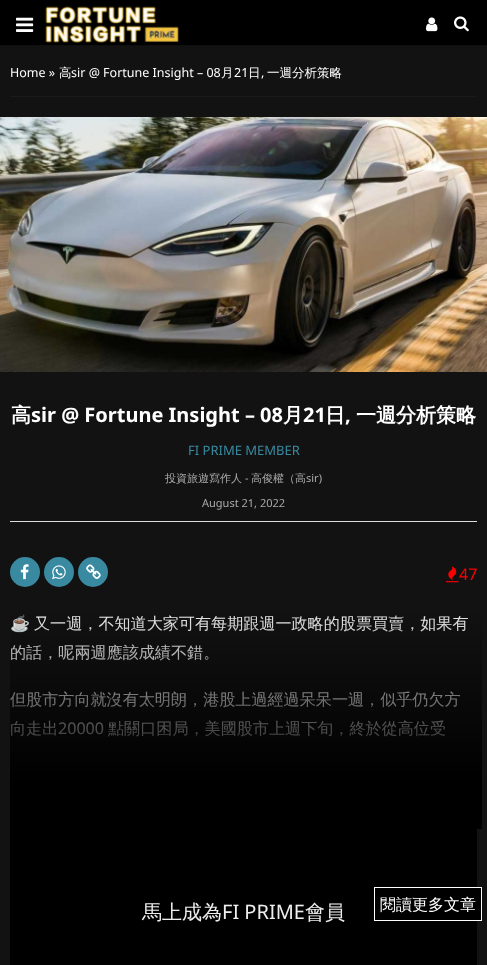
<!DOCTYPE html>
<meta charset="utf-8">
<style>body { margin: 0 } canvas { display: block }</style>
<canvas id="canvas" width="487" height="965"></canvas>
<script type="module">
  const canvas = document.getElementById("canvas");
  const g = canvas.getContext("2d");
  g.miterLimit = 4;
  g.fontKerning = "normal";
  function drawText(s, x, y, [font, color]) {
    g.font = font;
    g.fillStyle = color;
    g.fillText(s, x, y);
  }
  function fillBox(x, y, w, h, color) {
    g.fillStyle = color;
    g.fillRect(x, y, w, h);
  }
  async function drawPicture(src, x, y, w, h) {
    const img = new Image();
    img.src = src;
    await img.decode();
    g.drawImage(img, x, y, w, h);
  }
  let gradient;

  const s1 = ["12.5px Noto Sans", "#FFFFFF"];
  const s2 = ["500 12.5px WenQuanYi Zen Hei", "#FFFFFF"];
  const s3 = ["bold 20px WenQuanYi Zen Hei", "#FFFFFF"];
  const s4 = ["bold 20px Noto Sans", "#FFFFFF"];
  const s5 = ["13px Noto Sans", "#398AA1"];
  const s6 = ["500 11px WenQuanYi Zen Hei", "#ABABAB"];
  const s7 = ["11px Noto Sans", "#ABABAB"];
  const s8 = ["16px Noto Sans", "#FF0000"];
  const s9 = ["16.1px Noto Color Emoji", "#EEEEEE"];
  const s10 = ["500 16.1px WenQuanYi Zen Hei", "#EEEEEE"];
  const s11 = ["16.1px Noto Sans", "#EEEEEE"];
  const s12 = ["500 20px WenQuanYi Zen Hei", "#EEEEEE"];
  const s13 = ["20px Noto Sans", "#EEEEEE"];
  const s14 = ["500 16px WenQuanYi Zen Hei", "#FFFFFF"];

  fillBox(0, 0, 487, 965, "#121212");
  g.fillStyle = "#0F0F0F";
  g.beginPath();
  g.moveTo(0, -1);
  g.lineTo(0, 0);
  g.lineTo(487, 0);
  g.lineTo(487, 45);
  g.lineTo(0, 45);
  g.lineTo(0, 46);
  g.lineTo(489, 46);
  g.lineTo(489, -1);
  g.closePath();
  g.fill();
  fillBox(0, 0, 487, 45, "#000000");
  await drawPicture("pic1.png", 16, 17, 18, 15);
  await drawPicture("pic2.png", 45, 6, 134, 37);
  await drawPicture("pic3.png", 426, 17, 12, 15);
  await drawPicture("pic4.png", 454, 16, 15, 16);
  fillBox(10, 96, 467, 1, "#1A1A1A");
  drawText("Home »", 10, 77, s1);
  drawText("高", 59, 77, s2);
  drawText("sir @ Fortune Insight – 08", 71, 77, s1);
  drawText("月", 221, 77, s2);
  drawText("21", 234, 77, s1);
  drawText("日", 248, 77, s2);
  drawText(",", 261, 77, s1);
  drawText("一週分析策略", 267, 77, s2);
  await drawPicture("pic5.png", 0, 117, 487, 255);
  drawText("高", 11, 422, s3);
  drawText("sir @ Fortune Insight – 08", 31, 422, s4);
  drawText("月", 283, 422, s3);
  drawText("21", 303, 422, s4);
  drawText("日", 325, 422, s3);
  drawText(",", 345, 422, s4);
  drawText("一週分析策略", 356, 422, s3);
  fillBox(10, 521, 467, 1, "#DDDDDD");
  drawText("FI PRIME MEMBER", 188, 455, s5);
  drawText("投資旅遊寫作人", 165, 482, s6);
  drawText("-", 245, 482, s7);
  drawText("高俊權（高", 251, 482, s6);
  drawText("sir)", 306, 482, s7);
  drawText("August 21, 2022", 202, 507, s7);
  g.fillStyle = "#398AA1";
  g.beginPath();
  g.arc(25, 572, 15, 0, Math.PI * 2);
  g.fill();
  await drawPicture("pic6.png", 20, 564, 9, 16);
  g.beginPath();
  g.arc(59, 572, 15, 0, Math.PI * 2);
  g.fill();
  await drawPicture("pic7.png", 52, 565, 14, 15);
  g.beginPath();
  g.arc(93, 572, 15, 0, Math.PI * 2);
  g.fill();
  await drawPicture("pic8.png", 86, 564, 15, 15);
  await drawPicture("pic9.png", 446, 566, 13, 17);
  drawText("47", 459, 580, s8);
  drawText("☕", 10, 629, s9);
  drawText("又一週，不知道大家可有每期跟週一政略的股票買賣，如果有", 34, 629, s10);
  drawText("的話，呢兩週應該成績不錯。", 10, 658, s10);
  drawText("但股市方向就沒有太明朗，港股上過經過呆呆一週，似乎仍欠方", 10, 705, s10);
  drawText("向走出", 10, 734, s10);
  drawText("20000", 58, 734, s11);
  drawText("點關口困局，美國股市上週下旬，終於從高位受", 108, 734, s10);
  gradient = g.createLinearGradient(246, 609, 246, 829);
  gradient.addColorStop(0, "rgba(0, 0, 0, 0)");
  gradient.addColorStop(0.8, "#000000");
  gradient.addColorStop(1, "#000000");
  g.fillStyle = gradient;
  g.fillRect(10, 614, 472, 215);
  fillBox(10, 829, 467, 136, "#000000");
  drawText("馬上成為", 142, 919, s12);
  drawText("FI PRIME", 222, 919, s13);
  drawText("會員", 305, 919, s12);
  fillBox(477, 888, 4, 32, "#000000");
  g.strokeStyle = "#FFFFFF";
  g.strokeRect(374.5, 887.5, 107, 33);
  drawText("閱讀更多文章", 380, 910, s14);
</script>
